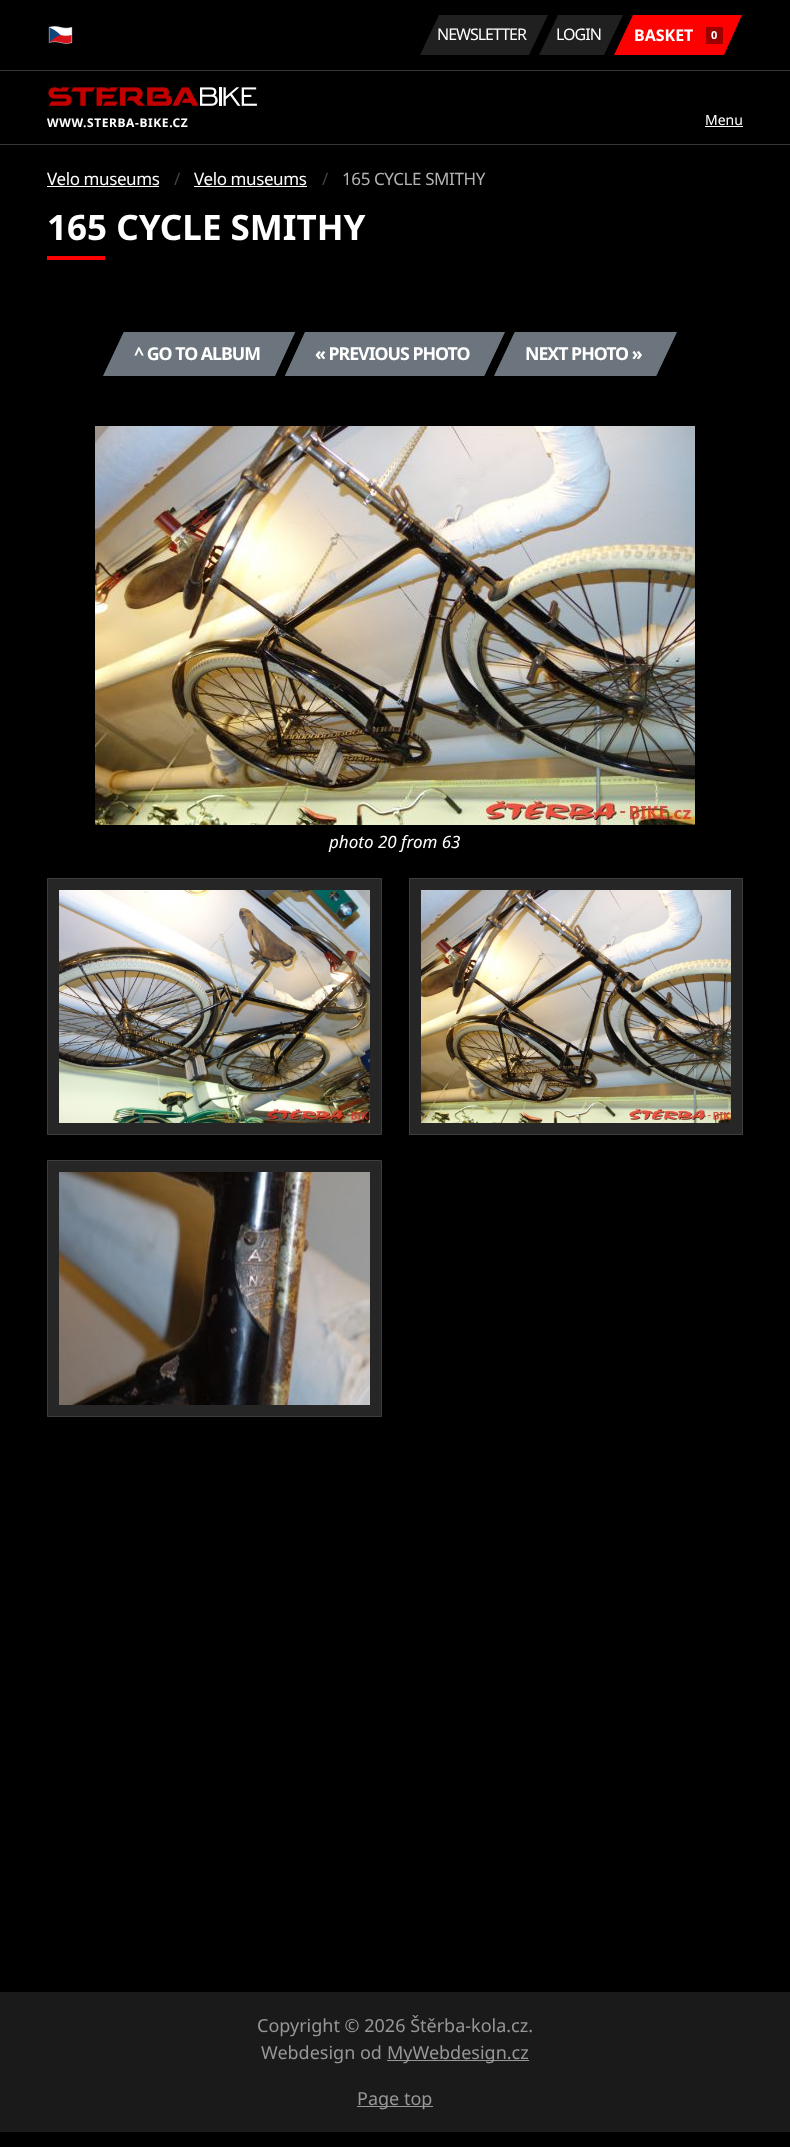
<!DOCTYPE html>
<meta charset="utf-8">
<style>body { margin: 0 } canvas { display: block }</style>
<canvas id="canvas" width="790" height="2147"></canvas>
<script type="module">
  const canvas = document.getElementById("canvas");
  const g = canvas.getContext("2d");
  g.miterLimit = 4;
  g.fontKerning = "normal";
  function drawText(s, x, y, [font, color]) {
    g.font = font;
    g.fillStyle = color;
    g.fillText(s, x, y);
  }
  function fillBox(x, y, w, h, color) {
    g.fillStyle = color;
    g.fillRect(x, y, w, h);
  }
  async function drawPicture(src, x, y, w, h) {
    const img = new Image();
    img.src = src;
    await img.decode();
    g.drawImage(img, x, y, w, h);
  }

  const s1 = ["16px Noto Sans", "#FFFFFF"];
  const s2 = ["bold 16px Noto Sans", "#FFFFFF"];
  const s3 = ["bold 11px Noto Sans", "#FFFFFF"];
  const s4 = ["bold 12px Noto Sans", "#FFFFFF"];
  const s5 = ["14px Noto Sans", "#FFFFFF"];
  const s6 = ["17px Noto Sans", "#FFFFFF"];
  const s7 = ["17px Noto Sans", "#434343"];
  const s8 = ["17px Noto Sans", "#B3B3B3"];
  const s9 = ["bold 35px Noto Sans", "#FFFFFF"];
  const s10 = ["bold 17.75px Noto Sans", "#FFFFFF"];
  const s11 = ["italic 17px Noto Sans", "#FFFFFF"];
  const s12 = ["18px Noto Sans", "#979797"];

  fillBox(0, 0, 790, 2147, "#000000");
  fillBox(0, 144, 790, 1, "#373737");
  await drawPicture("pic1.png", 48, 26, 25, 18);
  g.fillStyle = "#202020";
  g.beginPath();
  g.moveTo(439, 15);
  g.lineTo(548, 15);
  g.lineTo(529, 55);
  g.lineTo(420, 55);
  g.closePath();
  g.fill();
  g.letterSpacing = "-1px";
  drawText("NEWSLETTER", 437, 40, s1);
  g.fillStyle = "#202020";
  g.beginPath();
  g.moveTo(558, 15);
  g.lineTo(623, 15);
  g.lineTo(604, 55);
  g.lineTo(539, 55);
  g.closePath();
  g.fill();
  drawText("LOGIN", 556, 40, s1);
  g.fillStyle = "#FF0000";
  g.beginPath();
  g.moveTo(633, 15);
  g.lineTo(742, 15);
  g.lineTo(724, 55);
  g.lineTo(614, 55);
  g.closePath();
  g.fill();
  g.letterSpacing = "0px";
  drawText("BASKET", 634, 41, s2);
  fillBox(706, 27, 17, 17, "#9E0000");
  drawText("0", 711, 39, s3);
  fillBox(0, 70, 790, 1, "#373737");
  await drawPicture("pic2.png", 48, 87, 209, 19);
  g.letterSpacing = "0.6px";
  drawText("WWW.STERBA-BIKE.CZ", 47, 127, s4);
  g.letterSpacing = "0px";
  drawText("Menu", 705, 125, s5);
  fillBox(705, 126, 38, 1, "#FFFFFF");
  g.letterSpacing = "-0.4px";
  drawText("Velo museums", 47, 185, s6);
  fillBox(47, 186, 112, 1, "#FFFFFF");
  drawText("/", 174, 185, s7);
  drawText("Velo museums", 194, 185, s6);
  fillBox(194, 186, 113, 1, "#FFFFFF");
  drawText("/", 322, 185, s7);
  drawText("165 CYCLE SMITHY", 342, 185, s8);
  g.letterSpacing = "0px";
  drawText("165 CYCLE SMITHY", 47, 240, s9);
  fillBox(47, 256, 58, 4, "#FF0000");
  g.fillStyle = "#6C757D";
  g.beginPath();
  g.moveTo(124, 332);
  g.lineTo(295, 332);
  g.lineTo(275, 376);
  g.lineTo(103, 376);
  g.closePath();
  g.fill();
  g.beginPath();
  g.moveTo(124, 332.5);
  g.lineTo(294.5, 332.5);
  g.lineTo(274.5, 375.5);
  g.lineTo(104, 375.5);
  g.closePath();
  g.strokeStyle = "#6C757D";
  g.stroke();
  g.letterSpacing = "-1px";
  drawText("^ GO TO ALBUM", 134, 360, s10);
  g.fillStyle = "#6C757D";
  g.beginPath();
  g.moveTo(305, 332);
  g.lineTo(505, 332);
  g.lineTo(484, 376);
  g.lineTo(285, 376);
  g.closePath();
  g.fill();
  g.beginPath();
  g.moveTo(305.5, 332.5);
  g.lineTo(504, 332.5);
  g.lineTo(484, 375.5);
  g.lineTo(285.5, 375.5);
  g.closePath();
  g.stroke();
  drawText("« PREVIOUS PHOTO", 315, 360, s10);
  g.fillStyle = "#6C757D";
  g.beginPath();
  g.moveTo(515, 332);
  g.lineTo(677, 332);
  g.lineTo(656, 376);
  g.lineTo(494, 376);
  g.closePath();
  g.fill();
  g.beginPath();
  g.moveTo(515, 332.5);
  g.lineTo(676, 332.5);
  g.lineTo(656, 375.5);
  g.lineTo(495, 375.5);
  g.closePath();
  g.stroke();
  drawText("NEXT PHOTO »", 525, 360, s10);
  await drawPicture("pic3.png", 95, 426, 600, 399);
  g.letterSpacing = "0px";
  drawText("photo 20 from 63", 329, 848, s11);
  g.fillStyle = "#262626";
  g.beginPath();
  g.rect(47.5, 878.5, 334, 256);
  g.fill();
  g.strokeStyle = "#3E3E3E";
  g.stroke();
  await drawPicture("pic4.png", 59, 890, 311, 233);
  g.beginPath();
  g.rect(409.5, 878.5, 333, 256);
  g.fill();
  g.stroke();
  await drawPicture("pic5.png", 421, 890, 310, 233);
  g.beginPath();
  g.rect(47.5, 1160.5, 334, 256);
  g.fill();
  g.stroke();
  await drawPicture("pic6.png", 59, 1172, 311, 233);
  fillBox(0, 1992, 790, 140, "#1A1A1A");
  drawText("Copyright © 2026 Štěrba-kola.cz.", 257, 2032, s12);
  drawText("Webdesign od", 261, 2059, s12);
  fillBox(387, 2060, 142, 1, "#979797");
  drawText("MyWebdesign.cz", 387, 2059, s12);
  fillBox(357, 2106, 76, 1, "#979797");
  drawText("Page top", 357, 2105, s12);
</script>
